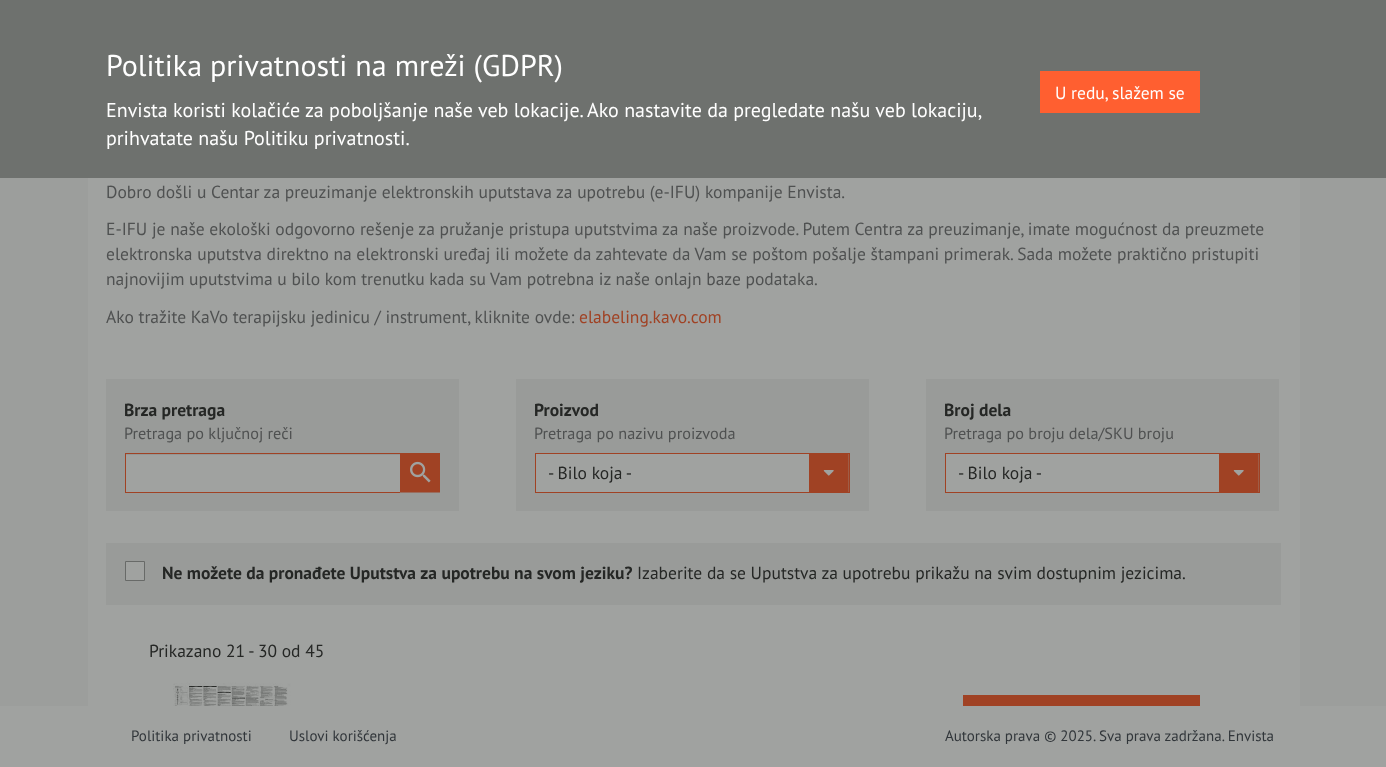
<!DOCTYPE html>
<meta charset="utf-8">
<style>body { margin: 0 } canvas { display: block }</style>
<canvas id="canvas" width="1386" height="767"></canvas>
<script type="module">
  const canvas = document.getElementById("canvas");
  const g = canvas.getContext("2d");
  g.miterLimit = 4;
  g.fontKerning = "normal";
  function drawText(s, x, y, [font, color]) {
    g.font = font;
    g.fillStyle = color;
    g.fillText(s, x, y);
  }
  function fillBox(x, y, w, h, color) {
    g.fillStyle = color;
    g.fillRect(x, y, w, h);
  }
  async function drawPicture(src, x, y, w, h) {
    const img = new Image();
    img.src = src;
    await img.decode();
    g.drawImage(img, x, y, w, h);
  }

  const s1 = ["30px PT Sans", "#FFFFFF"];
  const s2 = ["20px PT Sans", "#FFFFFF"];
  const s3 = ["17.5px PT Sans", "#FFFFFF"];
  const s4 = ["17.5px PT Sans", "#4F5151"];
  const s5 = ["17.5px PT Sans", "#A04224"];
  const s6 = ["bold 17.5px PT Sans", "#252725"];
  const s7 = ["16.25px PT Sans", "#4F5151"];
  const s8 = ["17.5px PT Sans", "#252725"];
  const s9 = ["15px PT Sans", "#31363A"];

  fillBox(0, 0, 1386, 767, "#9C9E9C");
  fillBox(0, 0, 1386, 178, "#6E716E");
  drawText("Politika privatnosti na mreži (GDPR)", 106, 76, s1);
  drawText("Envista koristi kolačiće za poboljšanje naše veb lokacije. Ako nastavite da pregledate našu veb lokaciju,", 106, 117, s2);
  drawText("prihvatate našu Politiku privatnosti.", 106, 145, s2);
  fillBox(1040, 71, 160, 42, "#FF5F30");
  drawText("U redu, slažem se", 1055, 99, s3);
  fillBox(88, 178, 1212, 528, "#A0A2A0");
  drawText("Dobro došli u Centar za preuzimanje elektronskih uputstava za upotrebu (e-IFU) kompanije Envista.", 106, 198, s4);
  drawText("E-IFU je naše ekološki odgovorno rešenje za pružanje pristupa uputstvima za naše proizvode. Putem Centra za preuzimanje, imate mogućnost da preuzmete", 106, 235, s4);
  drawText("elektronska uputstva direktno na elektronski uređaj ili možete da zahtevate da Vam se poštom pošalje štampani primerak. Sada možete praktično pristupiti", 106, 260, s4);
  drawText("najnovijim uputstvima u bilo kom trenutku kada su Vam potrebna iz naše onlajn baze podataka.", 106, 285, s4);
  drawText("Ako tražite KaVo terapijsku jedinicu / instrument, kliknite ovde:", 106, 323, s4);
  drawText("elabeling.kavo.com", 579, 323, s5);
  fillBox(106, 379, 353, 132, "#999B99");
  drawText("Brza pretraga", 124, 416, s6);
  drawText("Pretraga po ključnoj reči", 124, 439, s7);
  fillBox(126, 455, 274, 37, "#A0A2A0");
  fillBox(126, 454, 274, 1, "#949694");
  g.strokeStyle = "#A04224";
  g.strokeRect(125.5, 453.5, 314, 39);
  fillBox(400, 453, 40, 40, "#969896");
  await drawPicture("pic1.png", 400, 453, 40, 40);
  fillBox(516, 379, 353, 132, "#999B99");
  drawText("Proizvod", 534, 416, s6);
  drawText("Pretraga po nazivu proizvoda", 534, 439, s7);
  fillBox(536, 454, 313, 38, "#A0A2A0");
  await drawPicture("pic2.png", 809, 454, 40, 38);
  g.strokeRect(535.5, 453.5, 314, 39);
  drawText("- Bilo koja -", 548, 479, s8);
  fillBox(926, 379, 353, 132, "#999B99");
  drawText("Broj dela", 944, 416, s6);
  drawText("Pretraga po broju dela/SKU broju", 944, 439, s7);
  fillBox(946, 454, 313, 38, "#A0A2A0");
  await drawPicture("pic2.png", 1219, 454, 40, 38);
  g.strokeRect(945.5, 453.5, 314, 39);
  drawText("- Bilo koja -", 958, 479, s8);
  fillBox(106, 543, 1175, 62, "#999B99");
  g.fillStyle = "#A0A2A0";
  g.beginPath();
  g.rect(125.5, 561.5, 19, 19);
  g.fill();
  g.strokeStyle = "#686A68";
  g.stroke();
  drawText("Ne možete da pronađete Uputstva za upotrebu na svom jeziku?", 162, 579, s6);
  drawText("Izaberite da se Uputstva za upotrebu prikažu na svim dostupnim jezicima.", 637, 579, s8);
  drawText("Prikazano 21 - 30 od 45", 149, 657, s8);
  await drawPicture("pic3.png", 173, 682, 118, 24);
  fillBox(963, 695, 237, 11, "#A04224");
  fillBox(0, 706, 1386, 61, "#A0A2A0");
  drawText("Politika privatnosti", 131, 741, s9);
  drawText("Uslovi korišćenja", 289, 741, s9);
  drawText("Autorska prava © 2025. Sva prava zadržana. Envista", 945, 741, s9);
</script>
